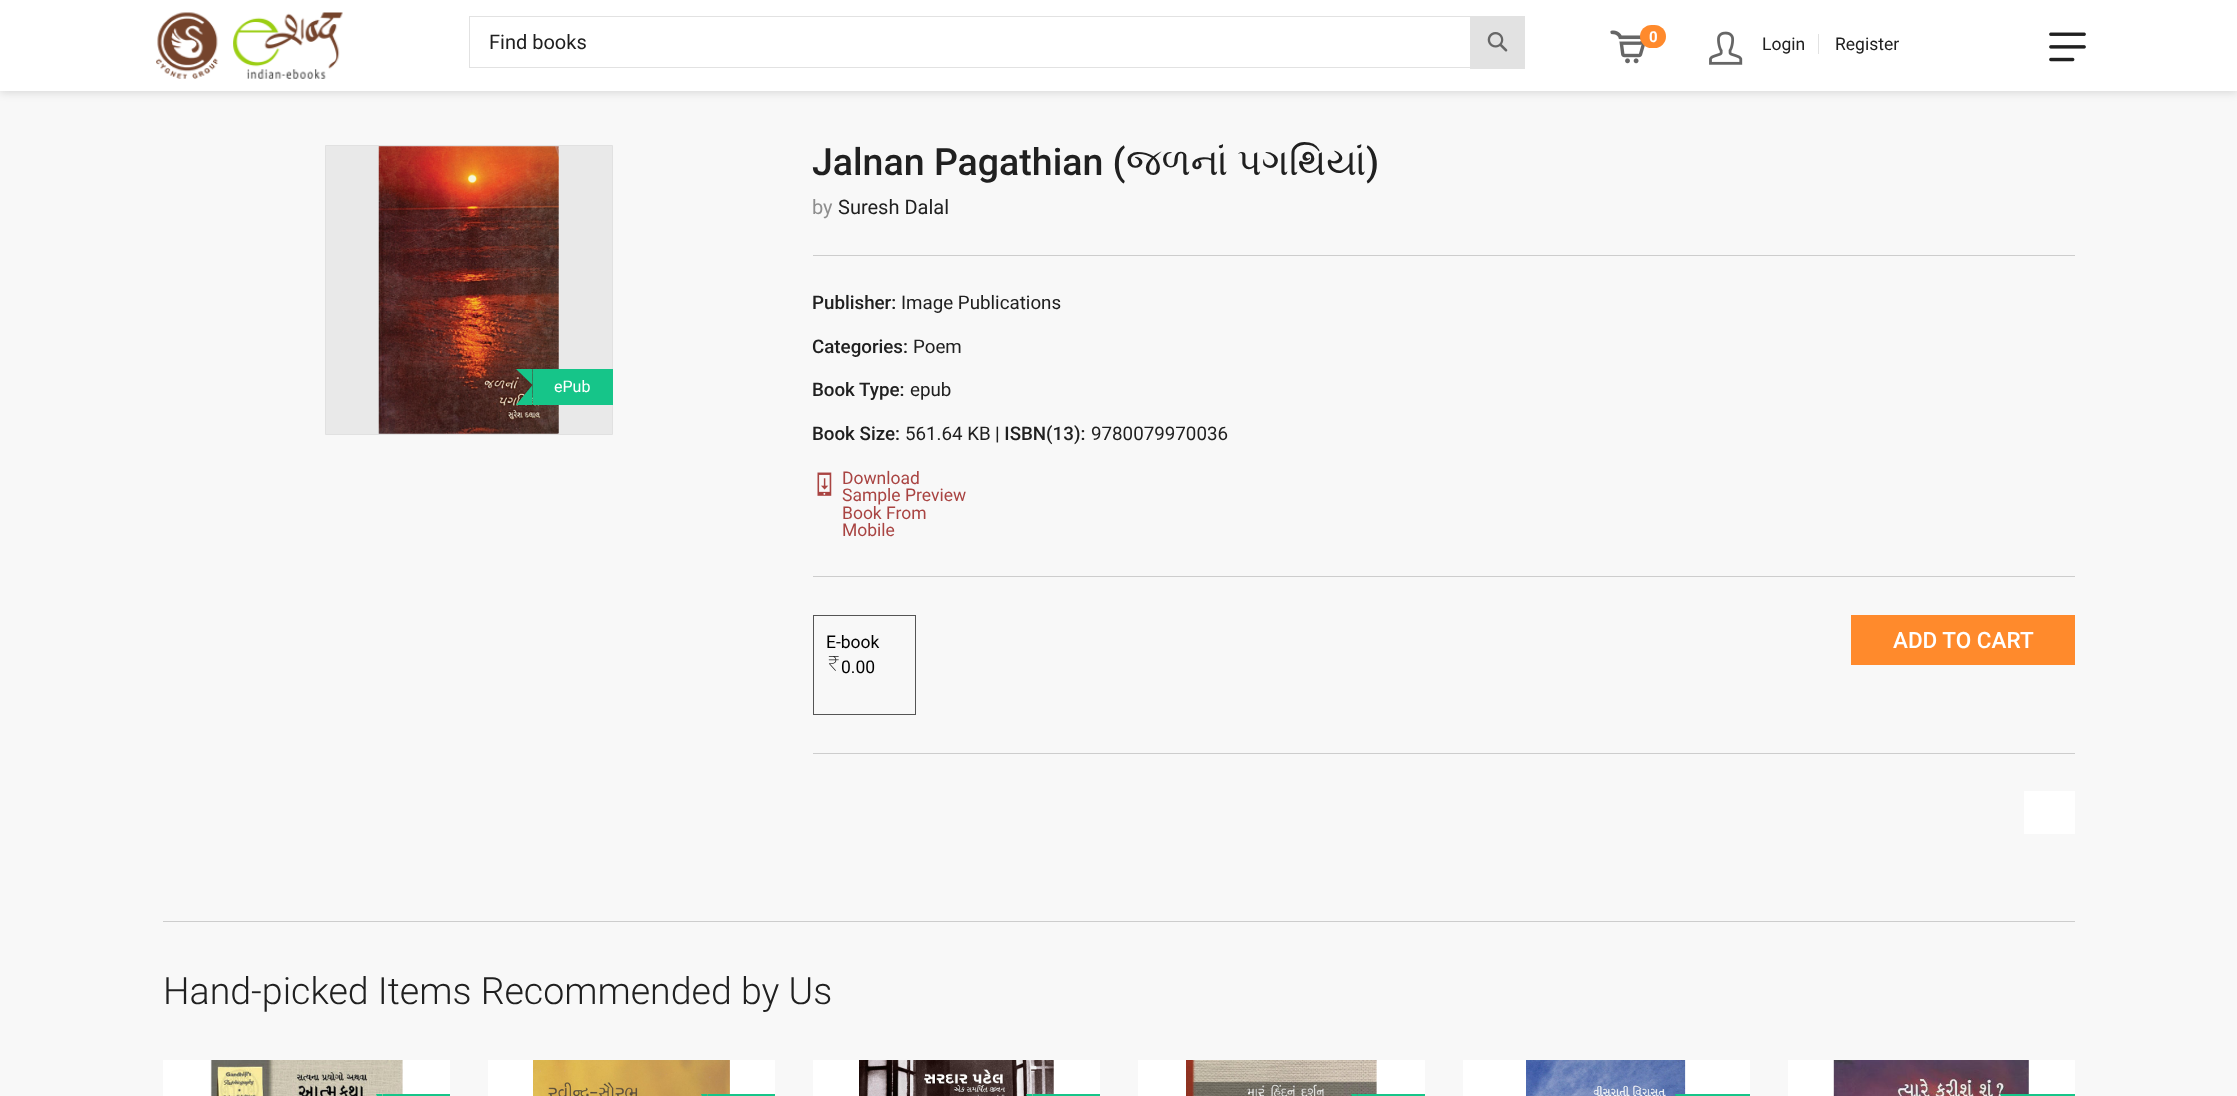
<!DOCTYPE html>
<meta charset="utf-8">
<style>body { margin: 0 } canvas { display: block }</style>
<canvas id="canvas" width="2237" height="1096"></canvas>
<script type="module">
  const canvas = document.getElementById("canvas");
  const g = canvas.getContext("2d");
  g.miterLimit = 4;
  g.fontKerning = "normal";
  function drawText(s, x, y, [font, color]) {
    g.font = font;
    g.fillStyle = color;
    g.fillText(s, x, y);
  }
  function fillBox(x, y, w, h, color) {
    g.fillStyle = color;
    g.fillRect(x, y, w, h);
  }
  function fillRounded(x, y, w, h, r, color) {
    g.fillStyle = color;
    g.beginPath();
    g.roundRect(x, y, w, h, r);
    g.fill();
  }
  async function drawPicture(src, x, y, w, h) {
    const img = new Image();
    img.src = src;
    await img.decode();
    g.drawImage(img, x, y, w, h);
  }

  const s1 = ["20px Roboto", "#202020"];
  const s2 = ["bold 15px Roboto", "#FFFFFF"];
  const s3 = ["17.5px Roboto", "#202020"];
  const s4 = ["16px Roboto", "#FFFFFF"];
  const s5 = ["500 37.5px Roboto", "#202020"];
  const s6 = ["37.5px FreeSerif", "#202020"];
  const s7 = ["20px Roboto", "#8E8E8E"];
  const s8 = ["500 18.75px Roboto", "#202020"];
  const s9 = ["18.75px Roboto", "#202020"];
  const s10 = ["17.5px Roboto", "#A94442"];
  const s11 = ["17.5px Roboto", "#000000"];
  const s12 = ["500 22.5px Roboto", "#FFFFFF"];
  const s13 = ["300 37.5px Roboto", "#202020"];

  fillBox(0, 0, 2237, 1096, "#F8F8F8");
  g.fillStyle = "rgba(0, 0, 0, 0.12)";
  g.filter = "blur(4px)";
  g.beginPath();
  g.rect(0, 1, 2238, 92);
  g.fill();
  g.filter = "none";
  fillBox(0, 0, 2237, 91, "#FFFFFF");
  await drawPicture("pic1.png", 156, 12, 187, 67);
  g.strokeStyle = "#E2E2E2";
  g.strokeRect(469.5, 16.5, 1055, 51);
  drawText("Find books", 489, 49, s1);
  fillBox(1470, 17, 55, 52, "#E2E2E2");
  await drawPicture("pic2.png", 1487, 32, 21, 20);
  await drawPicture("pic3.png", 1610, 30, 35, 34);
  fillRounded(1640, 25, 26, 23, 11.5, "#FF8A2C");
  drawText("0", 1649, 42, s2);
  await drawPicture("pic4.png", 1709, 31, 34, 34);
  drawText("Login", 1762, 50, s3);
  fillBox(1818, 34, 1, 20, "#E2E2E2");
  drawText("Register", 1835, 50, s3);
  await drawPicture("pic5.png", 2049, 32, 37, 30);
  g.fillStyle = "#E9E9E9";
  g.beginPath();
  g.rect(325.5, 145.5, 287, 289);
  g.fill();
  g.strokeStyle = "#E1E1E1";
  g.stroke();
  await drawPicture("pic6.png", 378, 146, 181, 288);
  fillBox(533, 369, 80, 36, "#16C589");
  g.beginPath();
  g.moveTo(516, 369);
  g.lineTo(532.5, 369);
  g.lineTo(532.5, 385);
  g.closePath();
  g.moveTo(532.5, 405);
  g.lineTo(516, 405);
  g.lineTo(532.5, 385);
  g.closePath();
  g.fill();
  drawText("ePub", 554, 392, s4);
  drawText("Jalnan Pagathian (", 812, 175, s5);
  drawText("જળનાં પગથિયાં", 1126, 175, s6);
  drawText(")", 1366, 175, s5);
  drawText("by", 812, 214, s7);
  drawText("Suresh Dalal", 838, 214, s1);
  fillBox(813, 255, 1262, 1, "#CDCDCD");
  drawText("Publisher:", 812, 309, s8);
  drawText("Image Publications", 901, 309, s9);
  drawText("Categories:", 812, 353, s8);
  drawText("Poem", 913, 353, s9);
  drawText("Book Type:", 812, 396, s8);
  drawText("epub", 910, 396, s9);
  drawText("Book Size:", 812, 440, s8);
  drawText("561.64 KB", 905, 440, s9);
  drawText("| ISBN(13):", 995, 440, s8);
  drawText("9780079970036", 1091, 440, s9);
  await drawPicture("pic7.png", 817, 472, 15, 24);
  drawText("Download", 842, 484, s10);
  drawText("Sample Preview", 842, 501, s10);
  drawText("Book From", 842, 519, s10);
  drawText("Mobile", 842, 536, s10);
  fillBox(813, 576, 1262, 1, "#CDCDCD");
  g.strokeStyle = "#555555";
  g.strokeRect(813.5, 615.5, 102, 99);
  drawText("E-book", 826, 648, s11);
  await drawPicture("pic8.png", 828, 656, 11, 15);
  drawText("0.00", 841, 673, s11);
  fillBox(1851, 615, 224, 50, "#FF8A2C");
  drawText("ADD TO CART", 1893, 648, s12);
  fillBox(813, 753, 1262, 1, "#CDCDCD");
  fillBox(2024, 791, 51, 43, "#FFFFFF");
  fillBox(163, 921, 1912, 1, "#CDCDCD");
  drawText("Hand-picked Items Recommended by Us", 163, 1004, s13);
  fillBox(163, 1060, 287, 36, "#FFFFFF");
  await drawPicture("pic9.png", 210, 1060, 193, 36);
  fillBox(383, 1094, 67, 2, "#16C589");
  g.beginPath();
  g.moveTo(376, 1094);
  g.lineTo(382.5, 1094);
  g.lineTo(382.5, 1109);
  g.closePath();
  g.fill();
  fillBox(488, 1060, 287, 36, "#FFFFFF");
  await drawPicture("pic10.png", 533, 1060, 197, 36);
  fillBox(708, 1094, 67, 2, "#16C589");
  g.beginPath();
  g.moveTo(701, 1094);
  g.lineTo(707.5, 1094);
  g.lineTo(707.5, 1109);
  g.closePath();
  g.fill();
  fillBox(813, 1060, 287, 36, "#FFFFFF");
  await drawPicture("pic11.png", 859, 1060, 195, 36);
  fillBox(1033, 1094, 67, 2, "#16C589");
  g.beginPath();
  g.moveTo(1026, 1094);
  g.lineTo(1032.5, 1094);
  g.lineTo(1032.5, 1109);
  g.closePath();
  g.fill();
  fillBox(1138, 1060, 287, 36, "#FFFFFF");
  await drawPicture("pic12.png", 1186, 1060, 191, 36);
  fillBox(1358, 1094, 67, 2, "#16C589");
  g.beginPath();
  g.moveTo(1351, 1094);
  g.lineTo(1357.5, 1094);
  g.lineTo(1357.5, 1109);
  g.closePath();
  g.fill();
  fillBox(1463, 1060, 287, 36, "#FFFFFF");
  await drawPicture("pic13.png", 1526, 1060, 160, 36);
  fillBox(1681, 1094, 69, 2, "#16C589");
  g.beginPath();
  g.moveTo(1675, 1094);
  g.lineTo(1681, 1094);
  g.lineTo(1681, 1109);
  g.closePath();
  g.fill();
  fillBox(1788, 1060, 287, 36, "#FFFFFF");
  await drawPicture("pic14.png", 1833, 1060, 196, 36);
  fillBox(2006, 1094, 69, 2, "#16C589");
  g.beginPath();
  g.moveTo(2000, 1094);
  g.lineTo(2006, 1094);
  g.lineTo(2006, 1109);
  g.closePath();
  g.fill();
</script>
